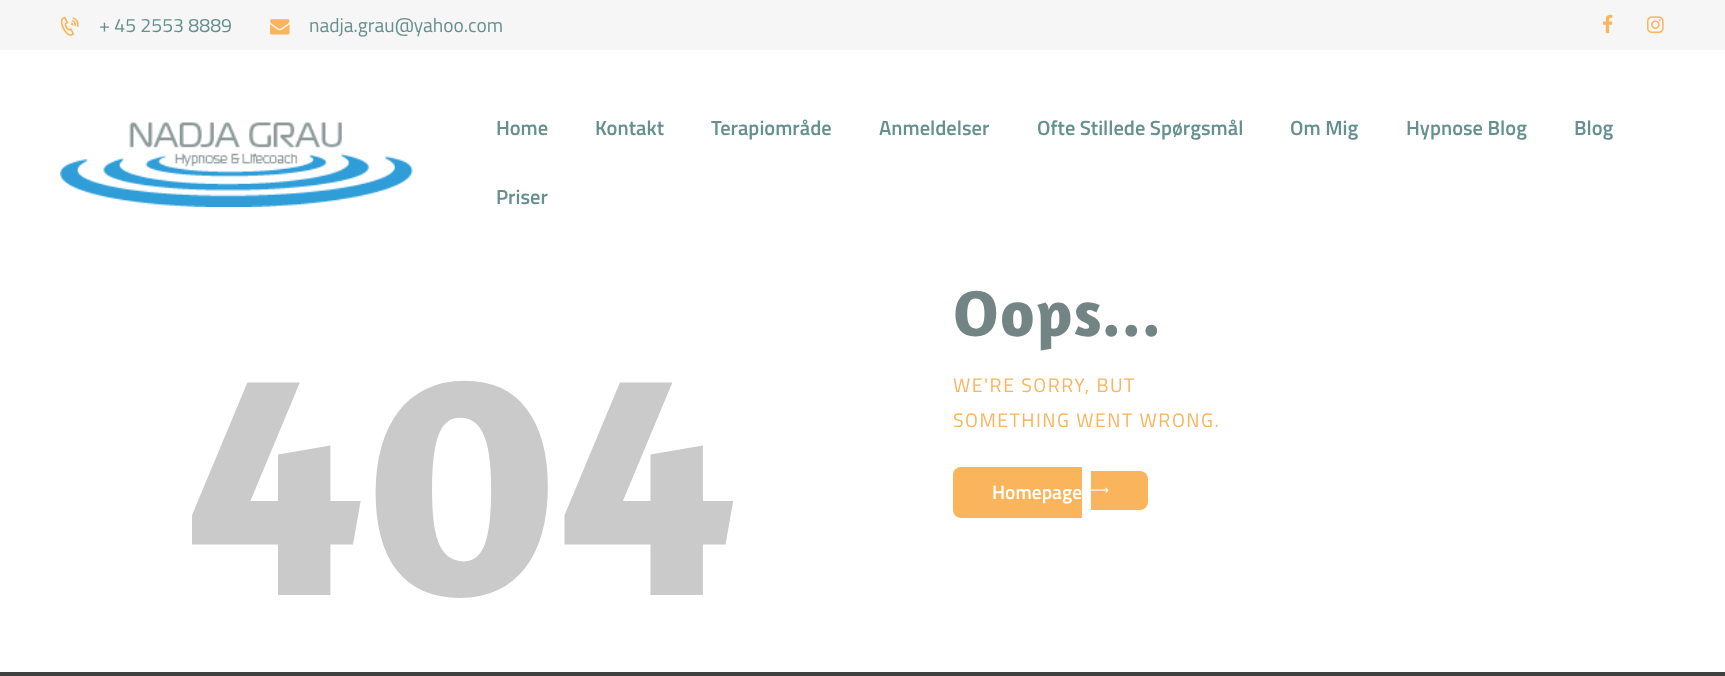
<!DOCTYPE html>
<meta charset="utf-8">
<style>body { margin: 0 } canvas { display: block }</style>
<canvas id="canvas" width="1725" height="676"></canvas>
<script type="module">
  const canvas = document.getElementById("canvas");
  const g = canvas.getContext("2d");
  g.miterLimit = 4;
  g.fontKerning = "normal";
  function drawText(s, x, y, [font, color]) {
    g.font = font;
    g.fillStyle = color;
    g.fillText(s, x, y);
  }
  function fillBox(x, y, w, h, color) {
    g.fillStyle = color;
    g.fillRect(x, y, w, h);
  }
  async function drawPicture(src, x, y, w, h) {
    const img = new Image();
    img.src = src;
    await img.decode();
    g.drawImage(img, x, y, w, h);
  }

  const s1 = ["19.5px Titillium Web", "#65908F"];
  const s2 = ["600 20.5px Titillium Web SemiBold", "#65908F"];
  const s3 = ["bold 332px Amaranth", "#CACACA"];
  const s4 = ["bold 66px Amaranth", "#728584"];
  const s5 = ["19.5px Titillium Web", "#F9B45C"];
  const s6 = ["600 19.5px Titillium Web SemiBold", "#FFFFFF"];

  fillBox(0, 0, 1725, 676, "#FFFFFF");
  fillBox(0, 0, 1725, 50, "#F6F6F6");
  await drawPicture("pic1.png", 60, 16, 19, 20);
  drawText("+ 45 2553 8889", 99, 32, s1);
  await drawPicture("pic2.png", 270, 19, 20, 16);
  drawText("nadja.grau@yahoo.com", 309, 32, s1);
  await drawPicture("pic3.png", 1603, 14, 10, 20);
  await drawPicture("pic4.png", 1647, 16, 17, 18);
  await drawPicture("pic5.png", 60, 122, 353, 85);
  drawText("Home", 496, 135, s2);
  drawText("Kontakt", 595, 135, s2);
  drawText("Terapiområde", 711, 135, s2);
  drawText("Anmeldelser", 879, 135, s2);
  drawText("Ofte Stillede Spørgsmål", 1037, 135, s2);
  drawText("Om Mig", 1290, 135, s2);
  drawText("Hypnose Blog", 1406, 135, s2);
  drawText("Blog", 1574, 135, s2);
  drawText("Priser", 496, 204, s2);
  drawText("404", 188, 595, s3);
  g.letterSpacing = "1.5px";
  drawText("Oops...", 953, 336, s4);
  drawText("WE'RE SORRY, BUT", 953, 392, s5);
  drawText("SOMETHING WENT WRONG.", 953, 427, s5);
  g.beginPath();
  g.roundRect(953, 467, 129, 51, [8, 0, 0, 8]);
  g.fill();
  g.letterSpacing = "0px";
  drawText("Homepage", 992, 499, s6);
  g.fillStyle = "#F9B45C";
  g.beginPath();
  g.roundRect(1091, 471, 57, 39, [0, 8, 8, 0]);
  g.fill();
  await drawPicture("pic6.png", 1091, 487, 18, 6);
  fillBox(0, 672, 1725, 4, "#3F4040");
</script>
